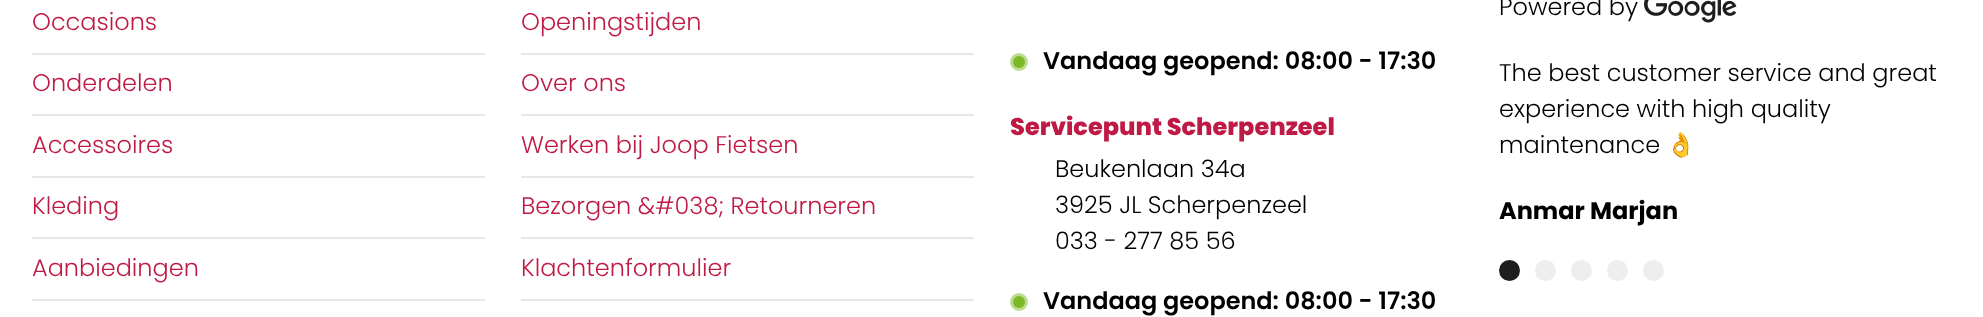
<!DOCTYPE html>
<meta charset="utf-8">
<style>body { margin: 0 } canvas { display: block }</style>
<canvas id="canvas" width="1983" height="317"></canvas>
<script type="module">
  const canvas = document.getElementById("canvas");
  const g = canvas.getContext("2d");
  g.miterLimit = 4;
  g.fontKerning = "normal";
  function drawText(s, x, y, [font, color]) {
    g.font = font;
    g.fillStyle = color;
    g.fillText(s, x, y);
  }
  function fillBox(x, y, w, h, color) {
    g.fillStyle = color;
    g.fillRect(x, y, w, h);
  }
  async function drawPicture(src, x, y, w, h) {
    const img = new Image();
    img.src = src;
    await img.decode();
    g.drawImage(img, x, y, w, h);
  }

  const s1 = ["300 24px Poppins", "#BF1A45"];
  const s2 = ["600 24px Poppins", "#000000"];
  const s3 = ["800 24px Poppins", "#BF1A45"];
  const s4 = ["300 24px Poppins", "#000000"];
  const s5 = ["24px Noto Color Emoji", "#000000"];
  const s6 = ["bold 24px Poppins", "#000000"];

  fillBox(0, 0, 1983, 317, "#FFFFFF");
  fillBox(32, 53, 453, 2, "#E5E7EB");
  drawText("Occasions", 32, 30, s1);
  fillBox(32, 114, 453, 2, "#E5E7EB");
  drawText("Onderdelen", 32, 91, s1);
  fillBox(32, 176, 453, 2, "#E5E7EB");
  drawText("Accessoires", 32, 153, s1);
  fillBox(32, 237, 453, 2, "#E5E7EB");
  drawText("Kleding", 32, 214, s1);
  fillBox(32, 299, 453, 2, "#E5E7EB");
  drawText("Aanbiedingen", 32, 276, s1);
  fillBox(521, 53, 453, 2, "#E5E7EB");
  drawText("Openingstijden", 521, 30, s1);
  fillBox(521, 114, 453, 2, "#E5E7EB");
  drawText("Over ons", 521, 91, s1);
  fillBox(521, 176, 453, 2, "#E5E7EB");
  drawText("Werken bij Joop Fietsen", 521, 153, s1);
  fillBox(521, 237, 453, 2, "#E5E7EB");
  drawText("Bezorgen &#038; Retourneren", 521, 214, s1);
  fillBox(521, 299, 453, 2, "#E5E7EB");
  drawText("Klachtenformulier", 521, 276, s1);
  g.fillStyle = "#BDDC93";
  g.beginPath();
  g.arc(1019, 62, 9, 0, Math.PI * 2);
  g.fill();
  g.fillStyle = "#7CB928";
  g.beginPath();
  g.arc(1019, 62, 6, 0, Math.PI * 2);
  g.fill();
  drawText("Vandaag geopend: 08:00 - 17:30", 1043, 69, s2);
  drawText("Servicepunt Scherpenzeel", 1010, 135, s3);
  drawText("Beukenlaan 34a", 1055, 177, s4);
  drawText("3925 JL Scherpenzeel", 1055, 213, s4);
  drawText("033 - 277 85 56", 1055, 249, s4);
  g.fillStyle = "#BDDC93";
  g.beginPath();
  g.arc(1019, 302, 9, 0, Math.PI * 2);
  g.fill();
  g.fillStyle = "#7CB928";
  g.beginPath();
  g.arc(1019, 302, 6, 0, Math.PI * 2);
  g.fill();
  drawText("Vandaag geopend: 08:00 - 17:30", 1043, 309, s2);
  drawText("Powered by", 1499, 15, s4);
  await drawPicture("pic1.png", 1644, 0, 93, 23);
  drawText("The best customer service and great", 1499, 81, s4);
  drawText("experience with high quality", 1499, 117, s4);
  drawText("maintenance", 1499, 153, s4);
  drawText("👌", 1666, 153, s5);
  drawText("Anmar Marjan", 1499, 219, s6);
  g.fillStyle = "#1E1E1E";
  g.beginPath();
  g.arc(1509.5, 270.5, 10.5, 0, Math.PI * 2);
  g.fill();
  g.fillStyle = "#EEEEEE";
  g.beginPath();
  g.arc(1545.5, 270.5, 10.5, 0, Math.PI * 2);
  g.fill();
  g.beginPath();
  g.arc(1581.5, 270.5, 10.5, 0, Math.PI * 2);
  g.fill();
  g.beginPath();
  g.arc(1617.5, 270.5, 10.5, 0, Math.PI * 2);
  g.fill();
  g.beginPath();
  g.arc(1653.5, 270.5, 10.5, 0, Math.PI * 2);
  g.fill();
</script>
